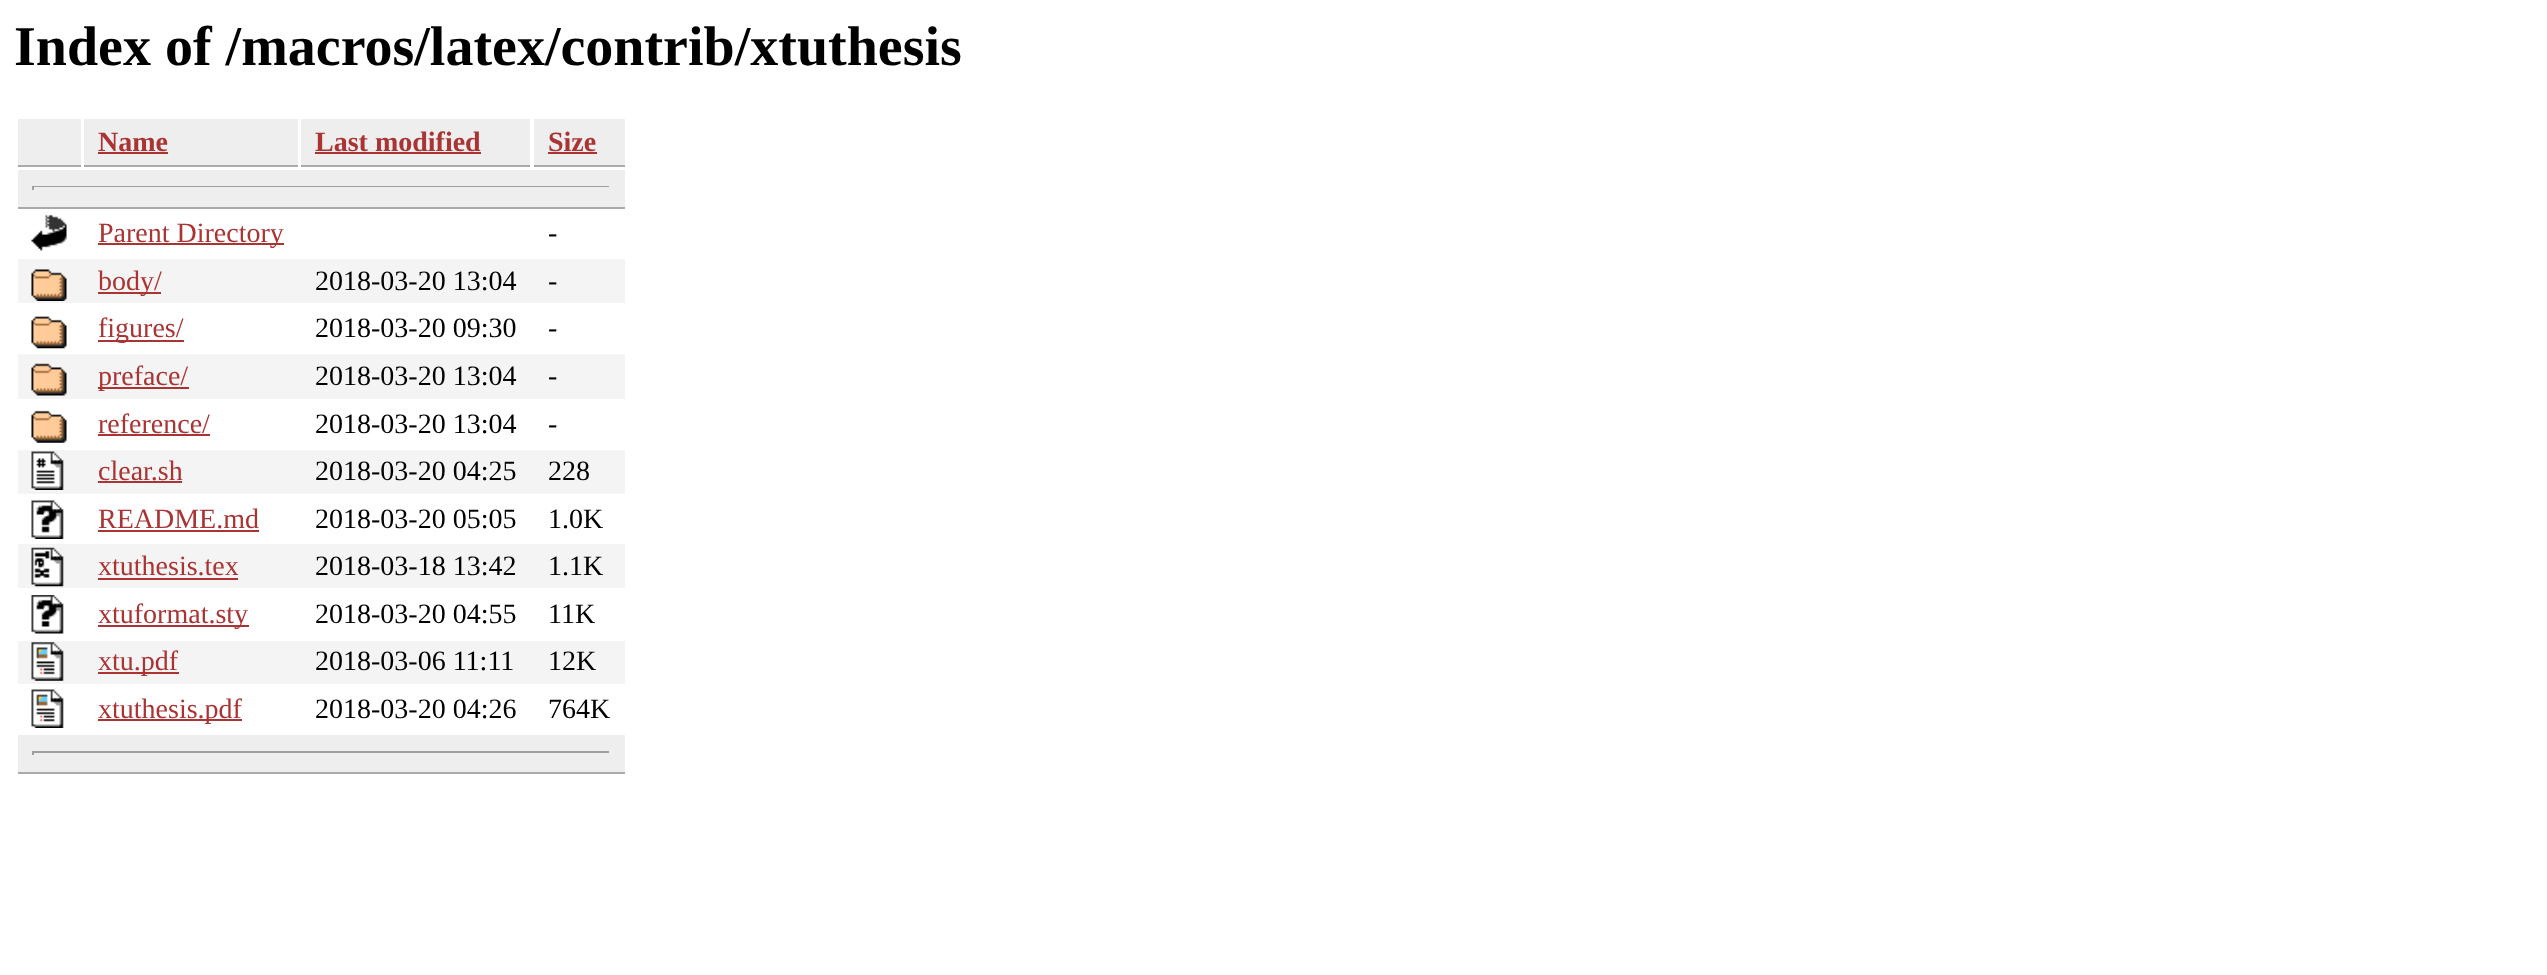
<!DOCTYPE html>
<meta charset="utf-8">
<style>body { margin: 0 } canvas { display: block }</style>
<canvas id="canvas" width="2547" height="975"></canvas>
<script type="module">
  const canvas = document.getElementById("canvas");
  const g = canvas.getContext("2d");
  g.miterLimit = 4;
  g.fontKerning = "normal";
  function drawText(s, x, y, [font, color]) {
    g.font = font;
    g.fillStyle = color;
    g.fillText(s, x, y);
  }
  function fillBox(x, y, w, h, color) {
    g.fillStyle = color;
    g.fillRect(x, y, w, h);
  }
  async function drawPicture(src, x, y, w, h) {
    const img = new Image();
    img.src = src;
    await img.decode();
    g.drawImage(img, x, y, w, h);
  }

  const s1 = ["bold 56px Liberation Serif", "#000000"];
  const s2 = ["bold 28px Liberation Serif", "#AA3333"];
  const s3 = ["28px Liberation Serif", "#AA3333"];
  const s4 = ["28px Liberation Serif", "#000000"];

  fillBox(0, 0, 2547, 975, "#FFFFFF");
  drawText("Index of /macros/latex/contrib/xtuthesis", 14, 65, s1);
  fillBox(18, 119, 63, 46, "#EEEEEE");
  fillBox(18, 165, 63, 2, "#AAAAAA");
  fillBox(84, 119, 214, 46, "#EEEEEE");
  fillBox(84, 165, 214, 2, "#AAAAAA");
  drawText("Name", 98, 151, s2);
  fillBox(98, 152, 70, 2, "#AA3333");
  fillBox(301, 119, 229, 46, "#EEEEEE");
  fillBox(301, 165, 229, 2, "#AAAAAA");
  drawText("Last modified", 315, 151, s2);
  fillBox(315, 152, 166, 2, "#AA3333");
  fillBox(534, 119, 91, 46, "#EEEEEE");
  fillBox(534, 165, 91, 2, "#AAAAAA");
  drawText("Size", 548, 151, s2);
  fillBox(548, 152, 49, 2, "#AA3333");
  fillBox(18, 170, 607, 37, "#EEEEEE");
  fillBox(18, 207, 607, 2, "#AAAAAA");
  fillBox(32, 186, 579, 1, "#9F9F9F");
  fillBox(609, 186, 2, 4, "#EEEEEE");
  fillBox(32, 186, 2, 4, "#9F9F9F");
  await drawPicture("pic1.png", 31, 214, 36, 37);
  fillBox(98, 243, 186, 2, "#AA3333");
  drawText("Parent Directory", 98, 242, s3);
  drawText("-", 548, 242, s4);
  fillBox(18, 259, 607, 44, "#F4F4F4");
  await drawPicture("pic2.png", 31, 269, 36, 32);
  fillBox(98, 292, 63, 2, "#AA3333");
  drawText("body/", 98, 290, s3);
  drawText("2018-03-20 13:04", 315, 290, s4);
  drawText("-", 548, 290, s4);
  await drawPicture("pic3.png", 31, 316, 36, 33);
  fillBox(98, 340, 86, 2, "#AA3333");
  drawText("figures/", 98, 337, s3);
  drawText("2018-03-20 09:30", 315, 337, s4);
  drawText("-", 548, 337, s4);
  fillBox(18, 354, 607, 45, "#F4F4F4");
  await drawPicture("pic4.png", 31, 363, 36, 33);
  fillBox(98, 387, 91, 2, "#AA3333");
  drawText("preface/", 98, 385, s3);
  drawText("2018-03-20 13:04", 315, 385, s4);
  drawText("-", 548, 385, s4);
  await drawPicture("pic5.png", 31, 410, 36, 33);
  drawText("reference/", 98, 433, s3);
  fillBox(98, 434, 112, 2, "#AA3333");
  drawText("2018-03-20 13:04", 315, 433, s4);
  drawText("-", 548, 433, s4);
  fillBox(18, 450, 607, 44, "#F4F4F4");
  await drawPicture("pic6.png", 31, 451, 33, 39);
  drawText("clear.sh", 98, 480, s3);
  fillBox(98, 481, 84, 2, "#AA3333");
  drawText("2018-03-20 04:25", 315, 480, s4);
  drawText("228", 548, 480, s4);
  await drawPicture("pic7.png", 31, 500, 33, 39);
  drawText("README.md", 98, 528, s3);
  fillBox(98, 530, 161, 2, "#AA3333");
  drawText("2018-03-20 05:05", 315, 528, s4);
  drawText("1.0K", 548, 528, s4);
  fillBox(18, 544, 607, 44, "#F4F4F4");
  await drawPicture("pic8.png", 31, 547, 33, 40);
  drawText("xtuthesis.tex", 98, 575, s3);
  fillBox(98, 578, 140, 2, "#AA3333");
  drawText("2018-03-18 13:42", 315, 575, s4);
  drawText("1.1K", 548, 575, s4);
  await drawPicture("pic9.png", 31, 595, 33, 39);
  fillBox(98, 625, 151, 2, "#AA3333");
  drawText("xtuformat.sty", 98, 623, s3);
  drawText("2018-03-20 04:55", 315, 623, s4);
  drawText("11K", 548, 623, s4);
  fillBox(18, 641, 607, 43, "#F4F4F4");
  await drawPicture("pic10.png", 31, 642, 33, 39);
  fillBox(98, 672, 81, 2, "#AA3333");
  drawText("xtu.pdf", 98, 670, s3);
  drawText("2018-03-06 11:11", 315, 670, s4);
  drawText("12K", 548, 670, s4);
  await drawPicture("pic11.png", 31, 689, 33, 39);
  fillBox(98, 719, 144, 2, "#AA3333");
  drawText("xtuthesis.pdf", 98, 718, s3);
  drawText("2018-03-20 04:26", 315, 718, s4);
  drawText("764K", 548, 718, s4);
  fillBox(18, 735, 607, 37, "#EEEEEE");
  fillBox(18, 772, 607, 2, "#AAAAAA");
  fillBox(32, 751, 579, 2, "#9F9F9F");
  fillBox(609, 751, 2, 4, "#EEEEEE");
  fillBox(32, 751, 2, 4, "#9F9F9F");
</script>
